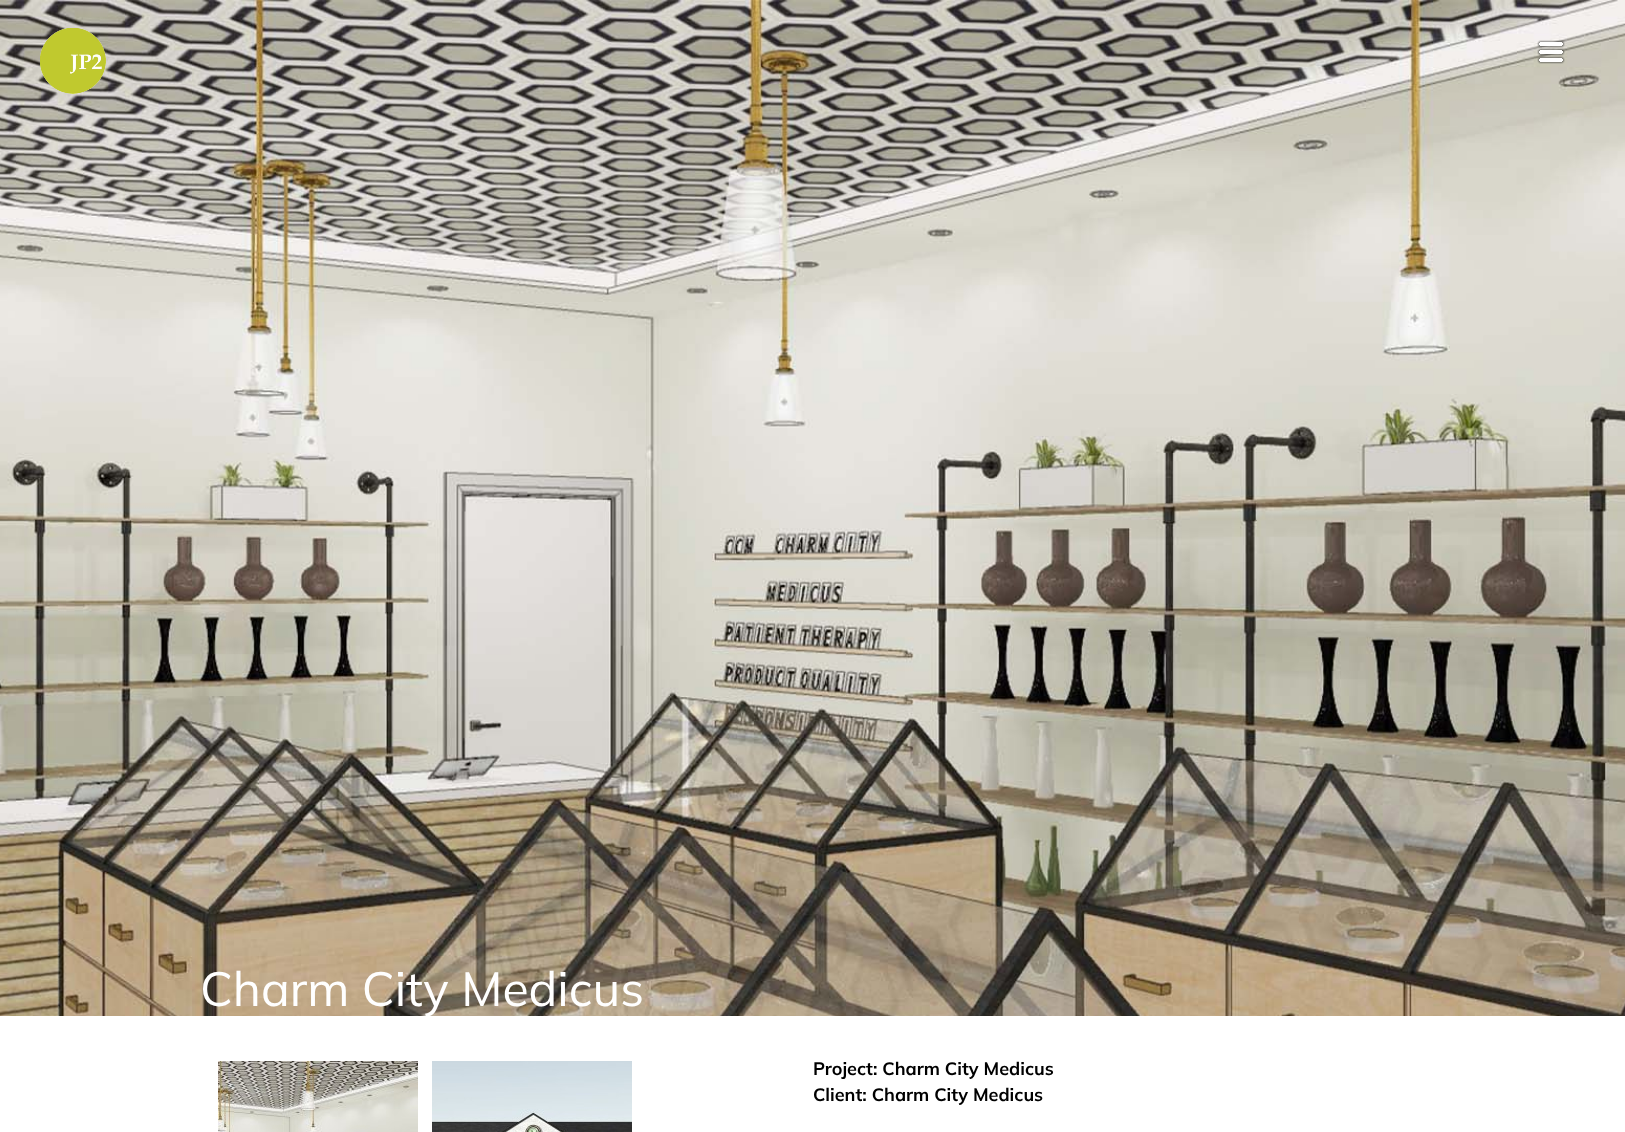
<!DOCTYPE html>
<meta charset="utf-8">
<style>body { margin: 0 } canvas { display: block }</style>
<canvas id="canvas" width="1625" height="1132"></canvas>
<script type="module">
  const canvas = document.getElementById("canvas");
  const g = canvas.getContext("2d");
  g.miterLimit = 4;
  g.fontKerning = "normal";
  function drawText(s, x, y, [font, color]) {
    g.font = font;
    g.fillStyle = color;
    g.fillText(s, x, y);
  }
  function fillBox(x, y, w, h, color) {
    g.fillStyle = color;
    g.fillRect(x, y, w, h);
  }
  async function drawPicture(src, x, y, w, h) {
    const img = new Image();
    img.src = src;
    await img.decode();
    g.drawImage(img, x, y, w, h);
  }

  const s1 = ["48px Mulish", "#FFFFFF"];
  const s2 = ["bold 18px Mulish", "#000000"];

  fillBox(0, 0, 1625, 1132, "#FFFFFF");
  await drawPicture("pic3.png", 0, 0, 1625, 1016);
  await drawPicture("pic1.png", 40, 28, 66, 66);
  await drawPicture("pic2.png", 1537, 40, 28, 24);
  g.save();
  g.beginPath();
  g.rect(0, 0, 1625, 1016);
  g.clip();
  drawText("Charm City Medicus", 200, 1006, s1);
  g.restore();
  await drawPicture("pic4.png", 218, 1061, 200, 71);
  await drawPicture("pic5.png", 432, 1061, 200, 71);
  drawText("Project: Charm City Medicus", 813, 1075, s2);
  drawText("Client: Charm City Medicus", 813, 1101, s2);
</script>
